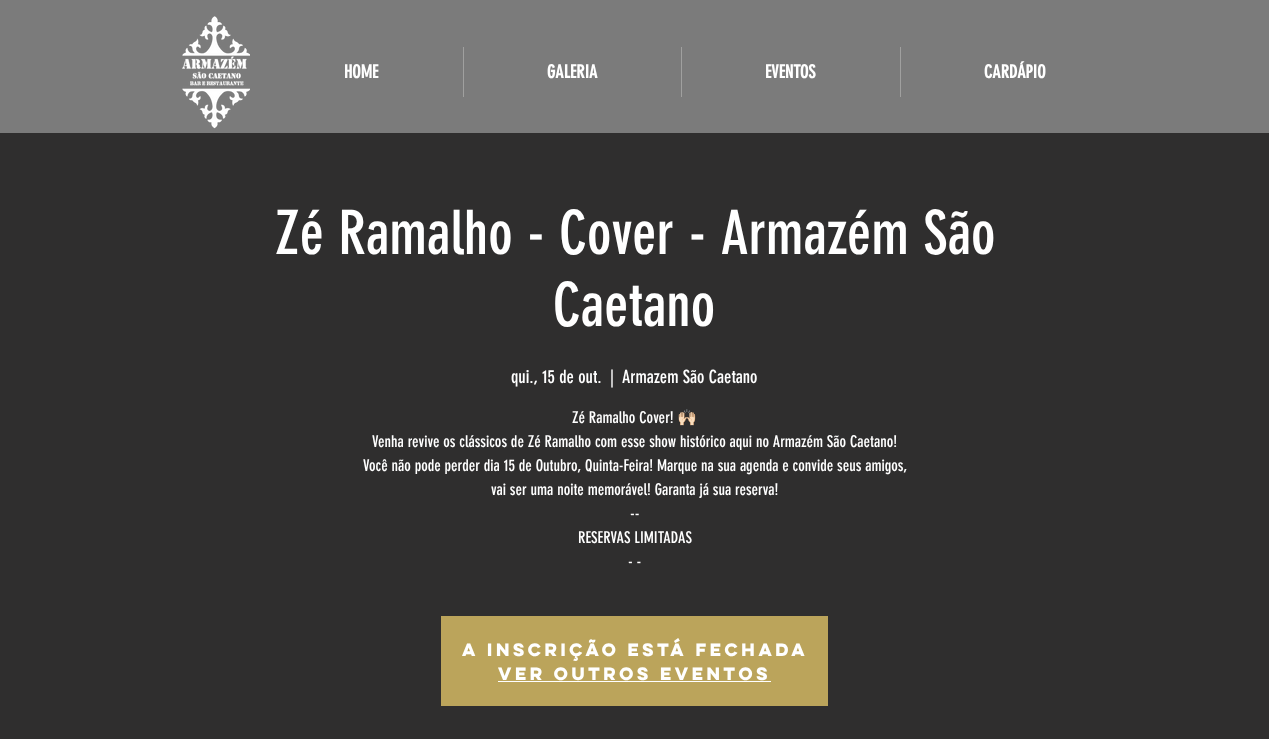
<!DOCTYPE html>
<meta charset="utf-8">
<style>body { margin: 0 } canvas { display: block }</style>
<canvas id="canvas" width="1269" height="739"></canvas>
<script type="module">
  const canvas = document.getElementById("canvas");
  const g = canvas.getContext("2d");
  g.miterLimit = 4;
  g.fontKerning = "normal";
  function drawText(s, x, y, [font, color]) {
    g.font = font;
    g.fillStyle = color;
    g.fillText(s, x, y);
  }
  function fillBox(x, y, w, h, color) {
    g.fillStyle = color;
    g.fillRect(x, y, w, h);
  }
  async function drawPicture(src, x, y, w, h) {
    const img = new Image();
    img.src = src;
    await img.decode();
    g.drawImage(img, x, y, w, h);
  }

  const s1 = ["bold 18px 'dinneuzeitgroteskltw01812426'", "#FFFFFF"];
  const s2 = ["60px 'dinneuzeitgroteskltw01812426'", "#FFFFFF"];
  const s3 = ["18px 'dinneuzeitgroteskltw01812426'", "#FFFFFF"];
  const s4 = ["16px 'dinneuzeitgroteskltw01812426'", "#FFFFFF"];
  const s5 = ["16px Noto Color Emoji", "#FFFFFF"];
  const s6 = ["bold 16px 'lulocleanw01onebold'", "#FFFFFF"];

  fillBox(0, 0, 1269, 739, "#2F2E2E");
  fillBox(0, 0, 1269, 133, "#7B7B7B");
  await drawPicture("pic1.png", 182, 16, 68, 113);
  drawText("HOME", 344, 78, s1);
  fillBox(463, 47, 1, 50, "#A0A09F");
  drawText("GALERIA", 547, 78, s1);
  fillBox(681, 47, 1, 50, "#A0A09F");
  drawText("EVENTOS", 765, 78, s1);
  fillBox(900, 47, 1, 50, "#A0A09F");
  drawText("CARDÁPIO", 984, 78, s1);
  drawText("Zé Ramalho - Cover - Armazém São", 275, 254, s2);
  drawText("Caetano", 553, 326, s2);
  drawText("qui., 15 de out.", 511, 383, s3);
  drawText("|", 610, 383, s3);
  drawText("Armazem São Caetano", 622, 383, s3);
  drawText("Zé Ramalho Cover!", 572, 423, s4);
  drawText("🙌🏻", 677, 423, s5);
  drawText("Venha revive os clássicos de Zé Ramalho com esse show histórico aqui no Armazém São Caetano!", 372, 447, s4);
  drawText("Você não pode perder dia 15 de Outubro, Quinta-Feira! Marque na sua agenda e convide seus amigos,", 363, 471, s4);
  drawText("vai ser uma noite memorável! Garanta já sua reserva!", 491, 495, s4);
  drawText("--", 630, 519, s4);
  drawText("RESERVAS LIMITADAS", 578, 543, s4);
  drawText("- -", 628, 567, s4);
  fillBox(441, 616, 387, 90, "#BBA45B");
  drawText("A inscrição está fechada", 462, 656, s6);
  drawText("Ver outros eventos", 498, 680, s6);
  fillBox(498, 681, 273, 1, "#FFFFFF");
</script>
